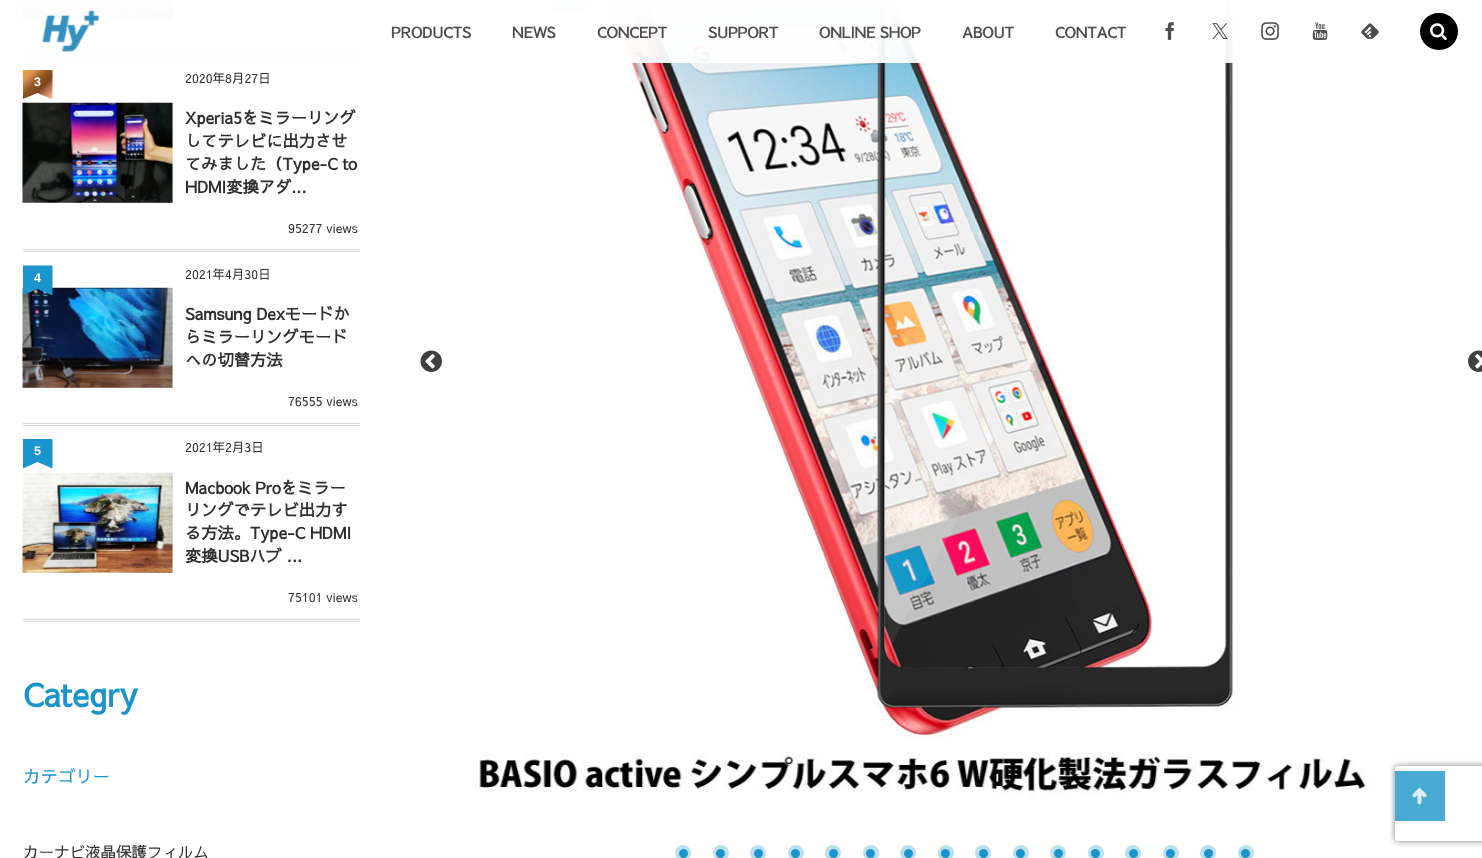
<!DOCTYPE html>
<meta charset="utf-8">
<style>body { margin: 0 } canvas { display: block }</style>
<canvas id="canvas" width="1482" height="858"></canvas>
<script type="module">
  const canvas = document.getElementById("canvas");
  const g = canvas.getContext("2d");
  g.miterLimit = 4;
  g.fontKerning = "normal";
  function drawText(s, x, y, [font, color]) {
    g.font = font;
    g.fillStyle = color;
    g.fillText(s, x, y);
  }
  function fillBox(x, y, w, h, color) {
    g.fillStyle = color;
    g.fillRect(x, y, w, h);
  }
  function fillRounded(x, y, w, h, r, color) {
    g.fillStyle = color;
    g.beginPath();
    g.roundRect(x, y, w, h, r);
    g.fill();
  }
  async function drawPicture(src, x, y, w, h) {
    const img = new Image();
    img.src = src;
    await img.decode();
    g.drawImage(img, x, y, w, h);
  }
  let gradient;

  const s1 = ["bold 15px Sawarabi Gothic", "#4D4D4D"];
  const s2 = ["bold 12.5px Liberation Sans", "#FFFFFF"];
  const s3 = ["12.5px Sawarabi Gothic", "#2F2F2F"];
  const s4 = ["bold 16.25px Sawarabi Gothic", "#2F2F2F"];
  const s5 = ["bold 32.5px Sawarabi Gothic", "#1B94CB"];
  const s6 = ["17.5px Sawarabi Gothic", "#1B94CB"];
  const s7 = ["15.6px Sawarabi Gothic", "#2F2F2F"];

  fillBox(0, 0, 1482, 858, "#FFFFFF");
  fillBox(23, 54, 337, 1, "#D6D6D6");
  fillBox(23, 56, 337, 1, "#D6D6D6");
  await drawPicture("pic8.png", 23, 0, 150, 19);
  await drawPicture("pic13.png", 474, 0, 897, 797);
  fillBox(23, 0, 1211, 63, "rgba(255, 255, 255, 0.92)");
  gradient = g.createLinearGradient(741, 0, 741, 63);
  gradient.addColorStop(0, "rgba(255, 255, 255, 0.92)");
  gradient.addColorStop(0.38, "rgba(255, 255, 255, 0.72)");
  gradient.addColorStop(1, "rgba(255, 255, 255, 0.1)");
  g.fillStyle = gradient;
  g.fillRect(23, 0, 1210, 61);
  await drawPicture("pic1.png", 42, 10, 58, 42);
  g.letterSpacing = "-0.1px";
  drawText("PRODUCTS", 391, 38, s1);
  drawText("NEWS", 512, 38, s1);
  drawText("CONCEPT", 597, 38, s1);
  drawText("SUPPORT", 708, 38, s1);
  drawText("ONLINE SHOP", 819, 38, s1);
  drawText("ABOUT", 962, 38, s1);
  drawText("CONTACT", 1055, 38, s1);
  await drawPicture("pic2.png", 1165, 22, 9, 18);
  await drawPicture("pic3.png", 1212, 23, 16, 16);
  await drawPicture("pic4.png", 1261, 22, 18, 18);
  await drawPicture("pic5.png", 1312, 22, 16, 18);
  await drawPicture("pic6.png", 1361, 23, 18, 16);
  fillRounded(1420, 13, 38, 37, 18.5, "#000000");
  await drawPicture("pic7.png", 1430, 23, 17, 17);
  fillBox(23, 249, 337, 1, "#D6D6D6");
  fillBox(23, 251, 337, 1, "#D6D6D6");
  gradient = g.createLinearGradient(23, 70, 53, 100);
  gradient.addColorStop(0, "#FE9C37");
  gradient.addColorStop(0.2, "#DA9356");
  gradient.addColorStop(0.4, "#965926");
  gradient.addColorStop(0.6, "#7B441D");
  gradient.addColorStop(0.8, "#D18764");
  gradient.addColorStop(1, "#FFD6AC");
  g.fillStyle = gradient;
  g.beginPath();
  g.moveTo(23, 70);
  g.lineTo(52.5, 70);
  g.lineTo(52.5, 99.5);
  g.lineTo(37.5, 93);
  g.lineTo(23, 99);
  g.closePath();
  g.fill();
  g.letterSpacing = "0px";
  drawText("3", 34, 86, s2);
  drawText("2020年8月27日", 185, 83, s3);
  drawText("Xperia5をミラーリング", 185, 124, s4);
  drawText("してテレビに出力させ", 185, 147, s4);
  drawText("てみました（Type-C to", 185, 170, s4);
  drawText("HDMI変換アダ...", 185, 193, s4);
  drawText("95277 views", 288, 233, s3);
  fillBox(23, 103, 150, 100, "#E6E6E6");
  await drawPicture("pic9.png", 22, 102, 151, 101);
  fillBox(23, 423, 337, 1, "#D6D6D6");
  fillBox(23, 425, 337, 1, "#D6D6D6");
  fillBox(23, 288, 150, 100, "#E6E6E6");
  await drawPicture("pic10.png", 22, 287, 151, 101);
  g.fillStyle = "#1B94CB";
  g.beginPath();
  g.moveTo(52.5, 265.5);
  g.lineTo(52.5, 295);
  g.lineTo(51.5, 295);
  g.lineTo(37.5, 289);
  g.lineTo(23, 295);
  g.lineTo(23, 265.5);
  g.closePath();
  g.fill();
  drawText("4", 34, 282, s2);
  drawText("2021年4月30日", 185, 279, s3);
  drawText("Samsung Dexモードか", 185, 320, s4);
  drawText("らミラーリングモード", 185, 343, s4);
  drawText("への切替方法", 185, 366, s4);
  drawText("76555 views", 288, 406, s3);
  fillBox(23, 619, 337, 1, "#D6D6D6");
  fillBox(23, 621, 337, 1, "#D6D6D6");
  g.fillStyle = "#1B94CB";
  g.beginPath();
  g.moveTo(23, 439);
  g.lineTo(52.5, 439);
  g.lineTo(52.5, 468.5);
  g.lineTo(37.5, 462);
  g.lineTo(23, 468.5);
  g.closePath();
  g.fill();
  drawText("5", 34, 455, s2);
  drawText("2021年2月3日", 185, 452, s3);
  drawText("Macbook Proをミラー", 185, 494, s4);
  drawText("リングでテレビ出力す", 185, 516, s4);
  drawText("る方法。Type-C HDMI", 185, 539, s4);
  drawText("変換USBハブ ...", 185, 562, s4);
  drawText("75101 views", 288, 602, s3);
  fillBox(23, 473, 150, 100, "#E6E6E6");
  await drawPicture("pic11.png", 22, 472, 151, 101);
  g.letterSpacing = "-0.1px";
  drawText("Categry", 23, 707, s5);
  drawText("カテゴリー", 23, 783, s6);
  drawText("カーナビ液晶保護フィルム", 23, 858, s7);
  await drawPicture("pic12.png", 420, 350, 22, 22);
  await drawPicture("pic14.png", 1468, 350, 14, 22);
  g.beginPath();
  g.arc(683, 853, 6, 0, Math.PI * 2);
  g.strokeStyle = "#BBDFEF";
  g.lineWidth = 4;
  g.stroke();
  g.fillStyle = "#1B94CB";
  g.beginPath();
  g.arc(683.5, 853.5, 4.5, 0, Math.PI * 2);
  g.fill();
  g.beginPath();
  g.arc(721, 853, 6, 0, Math.PI * 2);
  g.stroke();
  g.beginPath();
  g.arc(720.5, 853.5, 4.5, 0, Math.PI * 2);
  g.fill();
  g.beginPath();
  g.arc(758, 853, 6, 0, Math.PI * 2);
  g.stroke();
  g.beginPath();
  g.arc(758.5, 853.5, 4.5, 0, Math.PI * 2);
  g.fill();
  g.beginPath();
  g.arc(796, 853, 6, 0, Math.PI * 2);
  g.stroke();
  g.beginPath();
  g.arc(795.5, 853.5, 4.5, 0, Math.PI * 2);
  g.fill();
  g.beginPath();
  g.arc(833, 853, 6, 0, Math.PI * 2);
  g.stroke();
  g.beginPath();
  g.arc(833.5, 853.5, 4.5, 0, Math.PI * 2);
  g.fill();
  g.beginPath();
  g.arc(871, 853, 6, 0, Math.PI * 2);
  g.stroke();
  g.beginPath();
  g.arc(870.5, 853.5, 4.5, 0, Math.PI * 2);
  g.fill();
  g.beginPath();
  g.arc(908, 853, 6, 0, Math.PI * 2);
  g.stroke();
  g.beginPath();
  g.arc(908.5, 853.5, 4.5, 0, Math.PI * 2);
  g.fill();
  g.beginPath();
  g.arc(946, 853, 6, 0, Math.PI * 2);
  g.stroke();
  g.beginPath();
  g.arc(945.5, 853.5, 4.5, 0, Math.PI * 2);
  g.fill();
  g.beginPath();
  g.arc(983, 853, 6, 0, Math.PI * 2);
  g.stroke();
  g.beginPath();
  g.arc(983.5, 853.5, 4.5, 0, Math.PI * 2);
  g.fill();
  g.beginPath();
  g.arc(1021, 853, 6, 0, Math.PI * 2);
  g.stroke();
  g.beginPath();
  g.arc(1020.5, 853.5, 4.5, 0, Math.PI * 2);
  g.fill();
  g.beginPath();
  g.arc(1058, 853, 6, 0, Math.PI * 2);
  g.stroke();
  g.beginPath();
  g.arc(1058.5, 853.5, 4.5, 0, Math.PI * 2);
  g.fill();
  g.beginPath();
  g.arc(1096, 853, 6, 0, Math.PI * 2);
  g.stroke();
  g.beginPath();
  g.arc(1095.5, 853.5, 4.5, 0, Math.PI * 2);
  g.fill();
  g.beginPath();
  g.arc(1133, 853, 6, 0, Math.PI * 2);
  g.stroke();
  g.beginPath();
  g.arc(1133.5, 853.5, 4.5, 0, Math.PI * 2);
  g.fill();
  g.beginPath();
  g.arc(1171, 853, 6, 0, Math.PI * 2);
  g.stroke();
  g.beginPath();
  g.arc(1170.5, 853.5, 4.5, 0, Math.PI * 2);
  g.fill();
  g.beginPath();
  g.arc(1208, 853, 6, 0, Math.PI * 2);
  g.stroke();
  g.beginPath();
  g.arc(1208.5, 853.5, 4.5, 0, Math.PI * 2);
  g.fill();
  g.beginPath();
  g.arc(1246, 853, 6, 0, Math.PI * 2);
  g.stroke();
  g.beginPath();
  g.arc(1245.5, 853.5, 4.5, 0, Math.PI * 2);
  g.fill();
  fillBox(1395, 771, 50, 50, "#49A9D5");
  await drawPicture("pic15.png", 1412, 787, 15, 18);
  g.save();
  g.beginPath();
  g.moveTo(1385, 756);
  g.lineTo(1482, 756);
  g.lineTo(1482, 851);
  g.lineTo(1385, 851);
  g.closePath();
  g.moveTo(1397.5, 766);
  g.lineTo(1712.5, 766);
  g.bezierCurveTo(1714, 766, 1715, 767, 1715, 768.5);
  g.lineTo(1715, 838.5);
  g.bezierCurveTo(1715, 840, 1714, 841, 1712.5, 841);
  g.lineTo(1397.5, 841);
  g.bezierCurveTo(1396, 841, 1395, 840, 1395, 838.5);
  g.lineTo(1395, 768.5);
  g.bezierCurveTo(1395, 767, 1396, 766, 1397.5, 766);
  g.closePath();
  g.clip("evenodd");
  g.fillStyle = "#808080";
  g.filter = "blur(3px)";
  g.beginPath();
  g.roundRect(1395, 766, 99, 75, 2.5);
  g.fill();
  g.filter = "none";
  g.restore();
</script>
